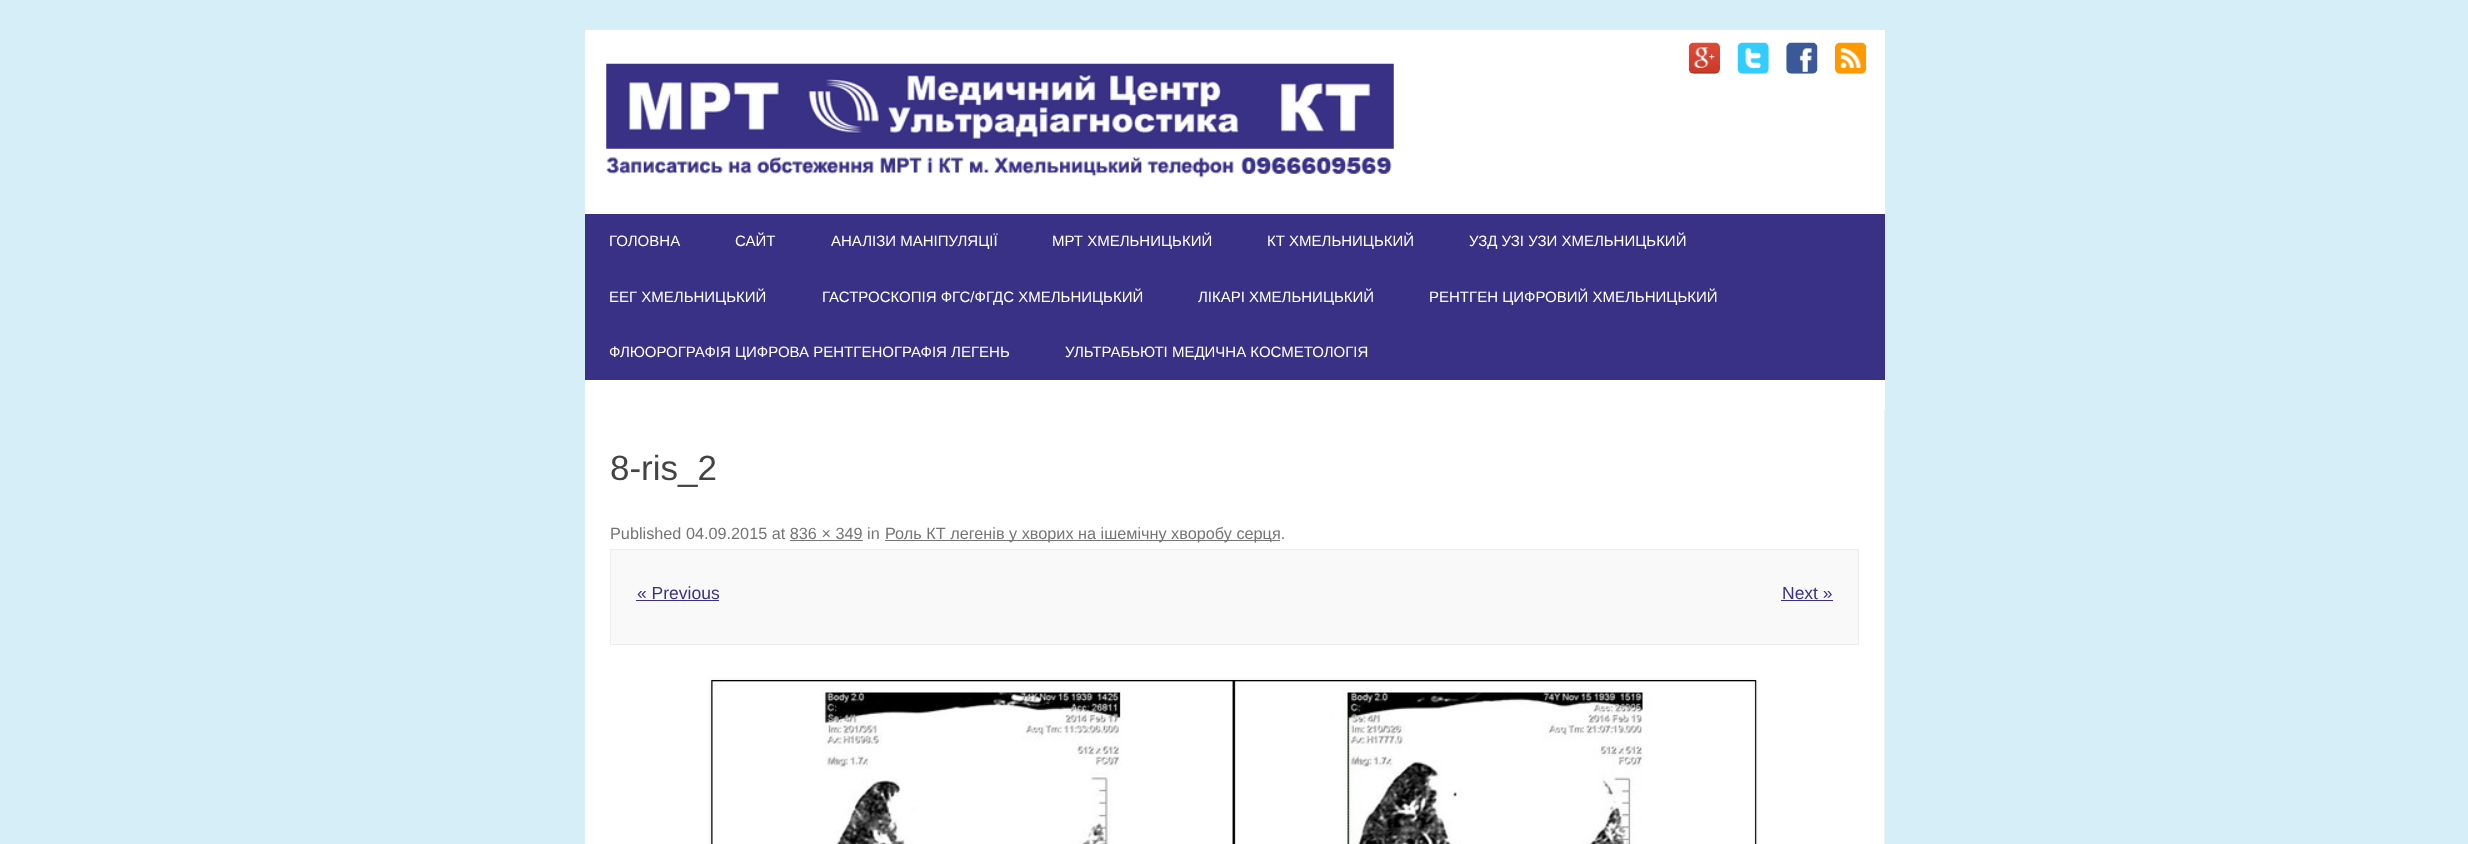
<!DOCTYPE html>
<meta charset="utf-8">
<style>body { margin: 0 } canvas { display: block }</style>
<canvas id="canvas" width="2468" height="844"></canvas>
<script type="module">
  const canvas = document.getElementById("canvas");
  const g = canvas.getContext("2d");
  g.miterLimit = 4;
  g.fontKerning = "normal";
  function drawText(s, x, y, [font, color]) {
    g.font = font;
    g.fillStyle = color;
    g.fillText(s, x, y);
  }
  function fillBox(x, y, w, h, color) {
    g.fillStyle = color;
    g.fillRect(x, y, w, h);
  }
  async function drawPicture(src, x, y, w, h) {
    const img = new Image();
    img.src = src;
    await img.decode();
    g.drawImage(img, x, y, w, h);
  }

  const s1 = ["15px Liberation Sans", "#FFFFFF"];
  const s2 = ["35px Liberation Sans", "#444444"];
  const s3 = ["16.25px Liberation Sans", "#757575"];
  const s4 = ["17.5px Liberation Sans", "#393186"];

  fillBox(0, 0, 2468, 844, "#D6EEF7");
  fillBox(585, 30, 1300, 814, "#FFFFFF");
  await drawPicture("pic1.png", 1688, 42, 32, 32);
  await drawPicture("pic2.png", 1737, 42, 32, 32);
  await drawPicture("pic3.png", 1786, 42, 32, 32);
  await drawPicture("pic4.png", 1835, 42, 32, 32);
  await drawPicture("pic5.png", 606, 63, 788, 115);
  fillBox(585, 214, 1300, 166, "#393186");
  drawText("ГОЛОВНА", 609, 246, s1);
  drawText("САЙТ", 735, 246, s1);
  drawText("АНАЛІЗИ МАНІПУЛЯЦІЇ", 831, 246, s1);
  drawText("МРТ ХМЕЛЬНИЦЬКИЙ", 1052, 246, s1);
  drawText("КТ ХМЕЛЬНИЦЬКИЙ", 1267, 246, s1);
  drawText("УЗД УЗІ УЗИ ХМЕЛЬНИЦЬКИЙ", 1469, 246, s1);
  drawText("ЕЕГ ХМЕЛЬНИЦЬКИЙ", 609, 302, s1);
  drawText("ГАСТРОСКОПІЯ ФГС/ФГДС ХМЕЛЬНИЦЬКИЙ", 822, 302, s1);
  drawText("ЛІКАРІ ХМЕЛЬНИЦЬКИЙ", 1198, 302, s1);
  drawText("РЕНТГЕН ЦИФРОВИЙ ХМЕЛЬНИЦЬКИЙ", 1429, 302, s1);
  drawText("ФЛЮОРОГРАФІЯ ЦИФРОВА РЕНТГЕНОГРАФІЯ ЛЕГЕНЬ", 609, 357, s1);
  drawText("УЛЬТРАБЬЮТІ МЕДИЧНА КОСМЕТОЛОГІЯ", 1065, 357, s1);
  fillBox(1884, 410, 1, 434, "#F1F1F1");
  drawText("8-ris_2", 610, 480, s2);
  drawText("Published 04.09.2015 at 836 × 349 in", 610, 539, s3);
  fillBox(885, 540, 395, 1, "#757575");
  drawText("Роль КТ легенів у хворих на ішемічну хворобу серця.", 885, 539, s3);
  fillBox(790, 540, 73, 1, "#757575");
  g.fillStyle = "#F9F9F9";
  g.beginPath();
  g.rect(610.5, 549.5, 1248, 95);
  g.fill();
  g.strokeStyle = "#EDEDED";
  g.stroke();
  drawText("« Previous", 637, 599, s4);
  fillBox(636, 600, 83, 1, "#393186");
  drawText("Next »", 1782, 599, s4);
  fillBox(1781, 600, 52, 1, "#393186");
  g.fillStyle = "rgba(0, 0, 0, 0.1)";
  g.filter = "blur(2.5px)";
  g.beginPath();
  g.rect(711, 681, 1045, 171);
  g.fill();
  g.filter = "none";
  await drawPicture("pic6.png", 711, 680, 1046, 164);
</script>
